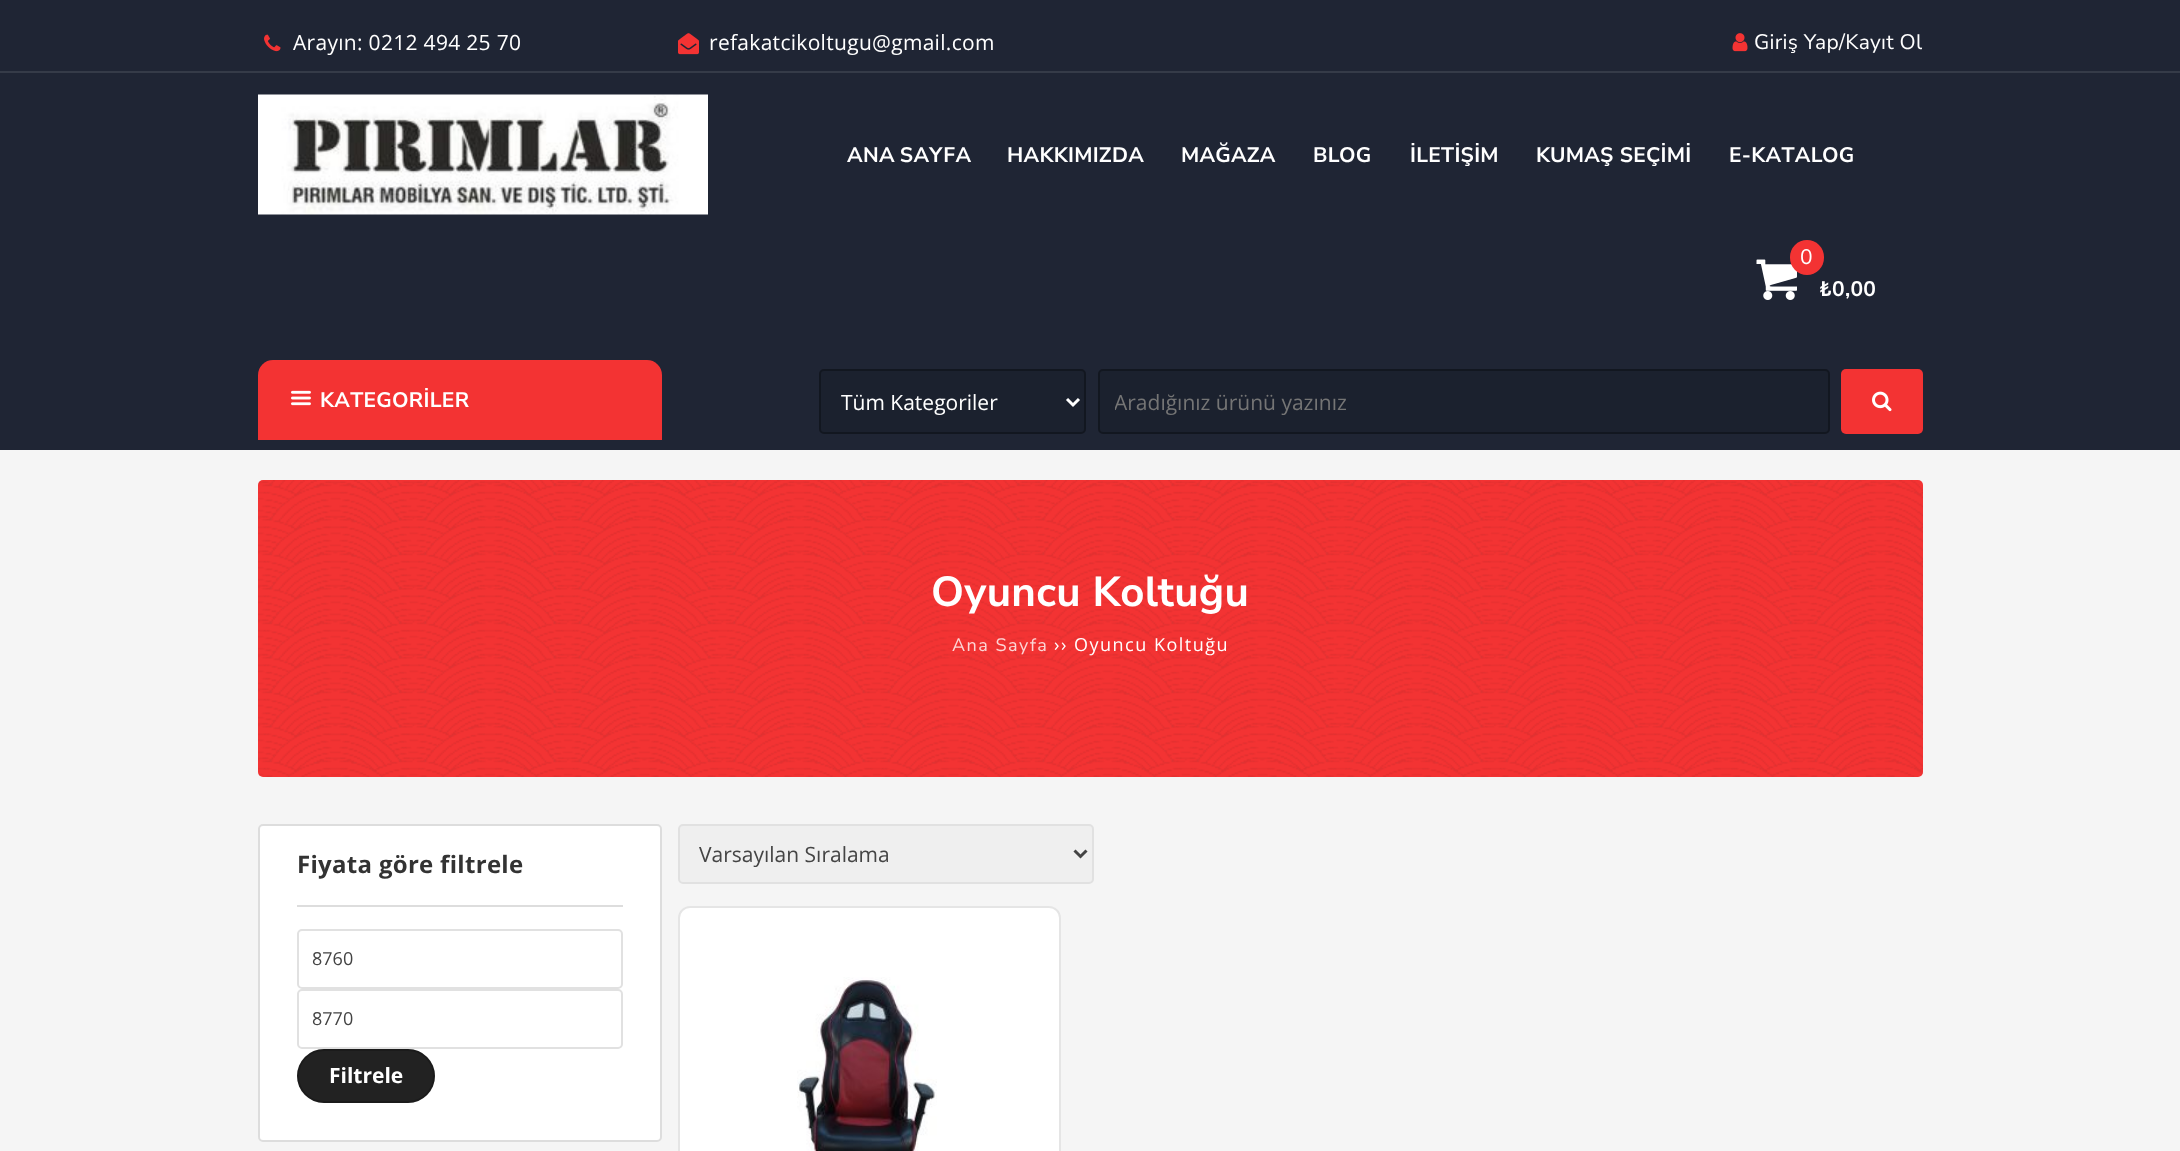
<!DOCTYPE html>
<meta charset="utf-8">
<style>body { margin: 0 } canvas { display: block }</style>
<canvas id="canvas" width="2180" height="1151"></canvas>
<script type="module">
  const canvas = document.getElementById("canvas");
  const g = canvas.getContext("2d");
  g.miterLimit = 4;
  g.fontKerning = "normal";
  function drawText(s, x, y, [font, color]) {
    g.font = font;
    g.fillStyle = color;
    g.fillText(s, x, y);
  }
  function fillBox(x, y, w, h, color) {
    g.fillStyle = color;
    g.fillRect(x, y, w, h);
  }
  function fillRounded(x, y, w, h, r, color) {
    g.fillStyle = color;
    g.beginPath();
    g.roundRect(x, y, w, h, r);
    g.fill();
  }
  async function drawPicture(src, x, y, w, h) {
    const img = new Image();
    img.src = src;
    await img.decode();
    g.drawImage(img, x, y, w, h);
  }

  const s1 = ["21px Open Sans", "#FFFFFF"];
  const s2 = ["21px Nunito Sans", "#FFFFFF"];
  const s3 = ["bold 21px Nunito Sans", "#FFFFFF"];
  const s4 = ["21px Open Sans", "#757575"];
  const s5 = ["bold 42px Nunito Sans", "#FFFFFF"];
  const s6 = ["18px Nunito Sans", "#FCD6D6"];
  const s7 = ["18px Open Sans", "#FFFFFF"];
  const s8 = ["bold 24px Open Sans", "#333333"];
  const s9 = ["18px Open Sans", "#444444"];
  const s10 = ["bold 21px Open Sans", "#FFFFFF"];
  const s11 = ["21px Open Sans", "#444444"];

  fillBox(0, 0, 2180, 1151, "#F5F5F5");
  fillBox(0, 0, 2180, 450, "#1F2534");
  fillBox(0, 71, 2180, 2, "#353B48");
  await drawPicture("pic1.png", 264, 34, 17, 18);
  g.letterSpacing = "0.3px";
  drawText("Arayın: 0212 494 25 70", 293, 50, s1);
  await drawPicture("pic2.png", 678, 33, 21, 22);
  drawText("refakatcikoltugu@gmail.com", 709, 50, s1);
  await drawPicture("pic3.png", 1732, 33, 16, 19);
  drawText("Giriş Yap/Kayıt Ol", 1754, 49, s2);
  await drawPicture("pic4.png", 258, 94, 450, 121);
  g.wordSpacing = "-1px";
  drawText("ANA SAYFA", 847, 162, s3);
  g.wordSpacing = "0px";
  drawText("HAKKIMIZDA", 1007, 162, s3);
  drawText("MAĞAZA", 1181, 162, s3);
  drawText("BLOG", 1313, 162, s3);
  drawText("İLETİŞİM", 1410, 162, s3);
  drawText("KUMAŞ SEÇİMİ", 1536, 162, s3);
  drawText("E-KATALOG", 1729, 162, s3);
  await drawPicture("pic5.png", 1756, 259, 41, 41);
  fillRounded(1790, 240, 34, 35, 17, "#F33333");
  drawText("0", 1800, 264, s2);
  drawText("₺", 1819, 296, s3);
  drawText("0,00", 1832, 296, s3);
  g.fillStyle = "#F33333";
  g.beginPath();
  g.roundRect(258, 360, 404, 80, [15, 15, 0, 0]);
  g.fill();
  await drawPicture("pic6.png", 291, 390, 20, 16);
  drawText("KATEGORİLER", 320, 407, s3);
  fillRounded(819, 369, 267, 65, 5, "rgba(0, 0, 0, 0.1)");
  g.beginPath();
  g.roundRect(820, 370, 265, 63, 4);
  g.strokeStyle = "rgba(0, 0, 0, 0.3)";
  g.lineWidth = 2;
  g.stroke();
  g.beginPath();
  g.moveTo(1067, 399);
  g.lineTo(1073, 405);
  g.lineTo(1079, 399);
  g.strokeStyle = "#FFFFFF";
  g.lineWidth = 3;
  g.stroke();
  g.letterSpacing = "0px";
  drawText("Tüm Kategoriler", 841, 410, s1);
  fillRounded(1098, 369, 732, 65, 5, "rgba(0, 0, 0, 0.1)");
  g.beginPath();
  g.roundRect(1099, 370, 730, 63, 4);
  g.strokeStyle = "rgba(0, 0, 0, 0.3)";
  g.lineWidth = 2;
  g.stroke();
  g.save();
  g.beginPath();
  g.rect(1115, 387, 678, 29);
  g.clip();
  drawText("Aradığınız ürünü yazınız", 1114, 410, s4);
  g.restore();
  fillRounded(1841, 369, 82, 65, 5, "#F33333");
  await drawPicture("pic7.png", 1872, 391, 20, 21);
  fillRounded(258, 480, 1665, 297, 5, "#F33333");
  await drawPicture("pic8.png", 258, 480, 1665, 297);
  g.letterSpacing = "0.3px";
  drawText("Oyuncu Koltuğu", 931, 606, s5);
  g.letterSpacing = "1.5px";
  drawText("Ana Sayfa", 952, 651, s6);
  drawText("›› Oyuncu Koltuğu", 1054, 651, s7);
  g.beginPath();
  g.roundRect(259, 825, 402, 316, 4);
  g.fill();
  g.strokeStyle = "#DDDDDD";
  g.stroke();
  fillBox(297, 905, 326, 2, "#DDDDDD");
  g.letterSpacing = "0.3px";
  drawText("Fiyata göre filtrele", 297, 873, s8);
  g.beginPath();
  g.roundRect(298, 930, 324, 58, 4);
  g.strokeStyle = "#E1E1E1";
  g.stroke();
  g.letterSpacing = "0px";
  drawText("8760", 312, 965, s9);
  g.beginPath();
  g.roundRect(298, 990, 324, 58, 4);
  g.stroke();
  drawText("8770", 312, 1025, s9);
  fillRounded(297, 1049, 138, 54, 27, "#222222");
  g.beginPath();
  g.roundRect(298, 1050, 136, 52, 26);
  g.strokeStyle = "rgba(0, 0, 0, 0.2)";
  g.stroke();
  drawText("Filtrele", 329, 1083, s10);
  g.fillStyle = "#EFEFEF";
  g.beginPath();
  g.roundRect(679, 825, 414, 58, 4);
  g.fill();
  g.strokeStyle = "#E1E1E1";
  g.stroke();
  g.beginPath();
  g.moveTo(1074.5, 850.5);
  g.lineTo(1080.5, 856.5);
  g.lineTo(1086.5, 850.5);
  g.strokeStyle = "#444444";
  g.lineWidth = 3;
  g.stroke();
  drawText("Varsayılan Sıralama", 699, 862, s11);
  fillRounded(678, 906, 383, 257, 12, "#FFFFFF");
  g.beginPath();
  g.roundRect(679, 907, 381, 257, 11);
  g.strokeStyle = "rgba(0, 0, 0, 0.1)";
  g.lineWidth = 2;
  g.stroke();
  await drawPicture("pic9.png", 797, 977, 140, 174);
</script>
